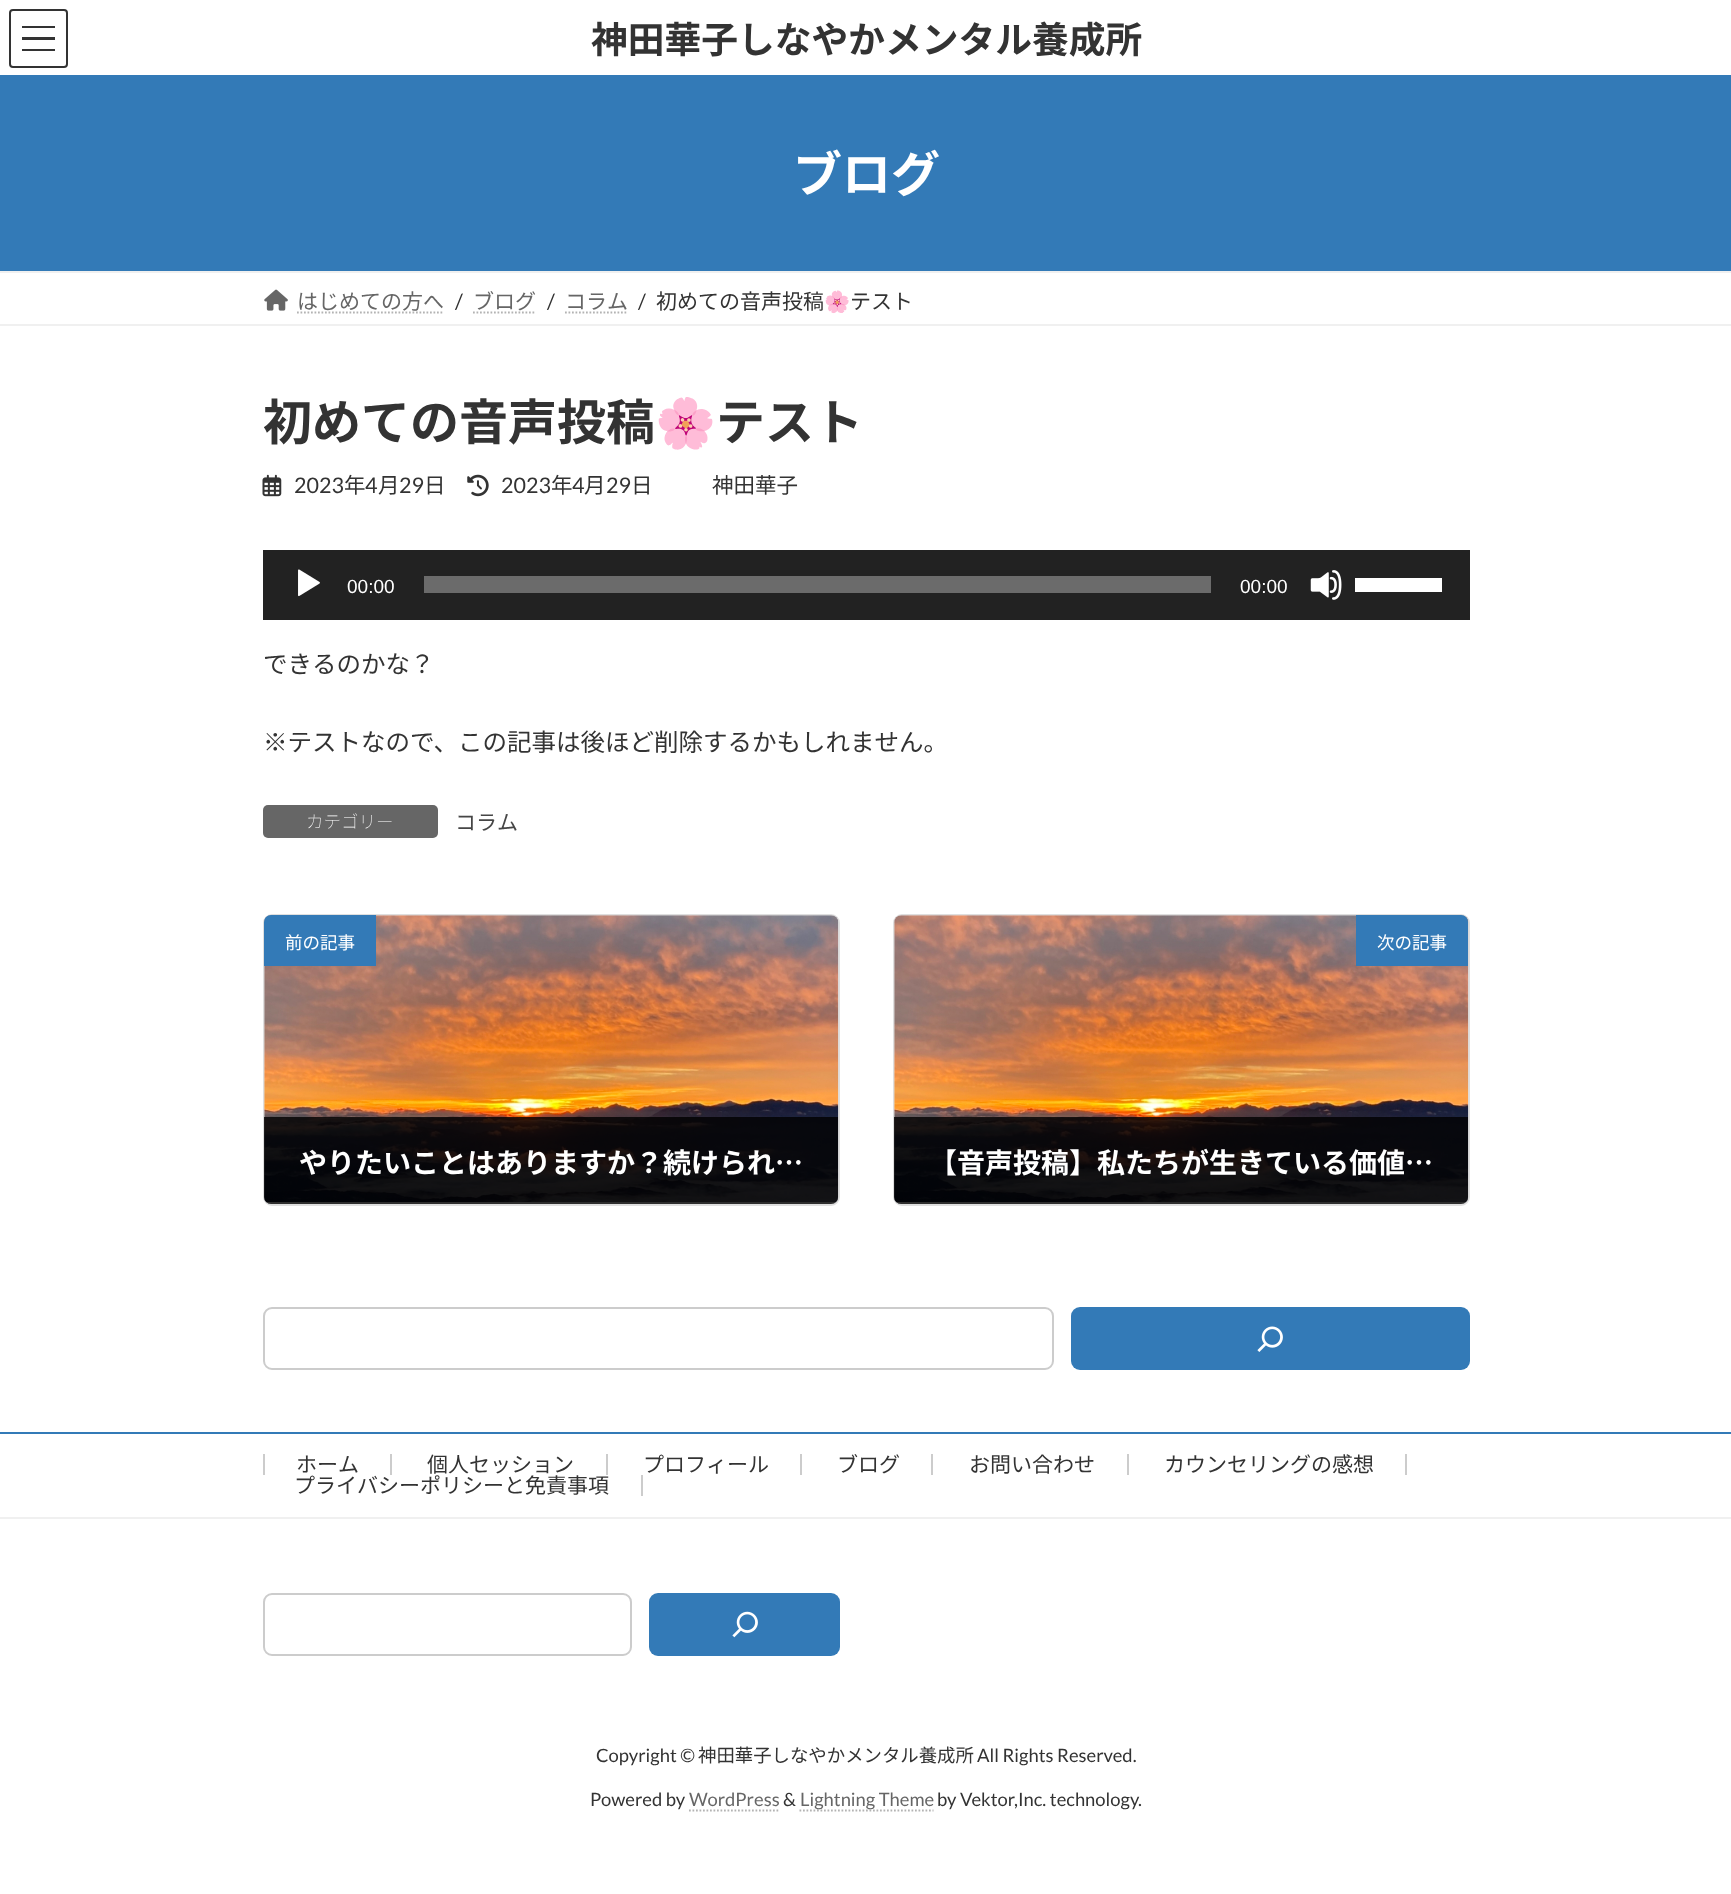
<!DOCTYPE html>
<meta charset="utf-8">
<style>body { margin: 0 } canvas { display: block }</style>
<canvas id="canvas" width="1731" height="1894"></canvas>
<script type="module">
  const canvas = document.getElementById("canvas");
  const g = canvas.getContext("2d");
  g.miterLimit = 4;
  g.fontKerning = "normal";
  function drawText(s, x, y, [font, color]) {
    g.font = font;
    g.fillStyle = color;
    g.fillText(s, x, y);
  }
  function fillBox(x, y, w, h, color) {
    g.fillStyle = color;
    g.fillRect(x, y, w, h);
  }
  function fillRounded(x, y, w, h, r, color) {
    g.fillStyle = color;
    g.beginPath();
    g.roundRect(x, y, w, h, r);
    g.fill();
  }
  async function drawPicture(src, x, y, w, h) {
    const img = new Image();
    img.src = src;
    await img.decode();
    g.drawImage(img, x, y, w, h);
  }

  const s1 = ["bold 36.75px Noto Sans JP", "#333333"];
  const s2 = ["bold 49px Noto Sans JP", "#FFFFFF"];
  const s3 = ["21px Noto Sans JP", "#666666"];
  const s4 = ["21px Lato", "#333333"];
  const s5 = ["21px Noto Sans JP", "#333333"];
  const s6 = ["21px Noto Color Emoji", "#333333"];
  const s7 = ["bold 49px Noto Sans JP", "#333333"];
  const s8 = ["bold 49px Noto Color Emoji", "#333333"];
  const s9 = ["21.5px Lato", "#333333"];
  const s10 = ["21.5px Noto Sans JP", "#333333"];
  const s11 = ["19px Liberation Sans", "#FFFFFF"];
  const s12 = ["24.5px Noto Sans JP", "#333333"];
  const s13 = ["100 17.5px Noto Sans JP", "#FFFFFF"];
  const s14 = ["21px Noto Sans JP", "#464646"];
  const s15 = ["17.5px Noto Sans JP", "#FFFFFF"];
  const s16 = ["bold 28px Noto Sans JP", "#FFFFFF"];
  const s17 = ["18.4px Lato", "#333333"];
  const s18 = ["18.4px Noto Sans JP", "#333333"];
  const s19 = ["18.4px Lato", "#666666"];

  fillBox(0, 0, 1731, 1894, "#FFFFFF");
  fillBox(22, 26, 33, 2, "#333333");
  fillBox(22, 37, 33, 3, "#333333");
  fillBox(22, 49, 33, 2, "#333333");
  g.beginPath();
  g.roundRect(10, 10, 57, 57, 3);
  g.strokeStyle = "#333333";
  g.lineWidth = 2;
  g.stroke();
  drawText("神田華子しなやかメンタル養成所", 591, 53, s1);
  fillBox(0, 75, 1731, 196, "#337AB7");
  drawText("ブログ", 793, 192, s2);
  fillBox(0, 271, 1731, 2, "#F0F0F0");
  fillBox(0, 324, 1731, 2, "#F0F0F0");
  await drawPicture("pic1.png", 264, 289, 24, 22);
  drawText("はじめての方へ", 297, 309, s3);
  g.beginPath();
  g.moveTo(297, 312.5);
  g.lineTo(444, 312.5);
  g.strokeStyle = "#B3B3B3";
  g.lineWidth = 1.8;
  g.setLineDash([1.75, 1.75]);
  g.stroke();
  drawText("/", 455, 309, s4);
  drawText("ブログ", 473, 309, s3);
  g.beginPath();
  g.moveTo(473, 312.5);
  g.lineTo(536, 312.5);
  g.stroke();
  drawText("/", 547, 309, s4);
  drawText("コラム", 565, 309, s3);
  g.beginPath();
  g.moveTo(565, 312.5);
  g.lineTo(627.5, 312.5);
  g.stroke();
  drawText("/", 638, 309, s4);
  drawText("初めての音声投稿", 656, 309, s5);
  drawText("🌸", 824, 309, s6);
  drawText("テスト", 850, 309, s5);
  drawText("初めての音声投稿", 263, 440, s7);
  drawText("🌸", 655, 440, s8);
  drawText("テスト", 716, 440, s7);
  await drawPicture("pic2.png", 262, 474, 20, 23);
  drawText("2023", 294, 493, s9);
  drawText("年", 344, 493, s10);
  drawText("4", 365, 493, s9);
  drawText("月", 378, 493, s10);
  drawText("29", 399, 493, s9);
  drawText("日", 424, 493, s10);
  await drawPicture("pic3.png", 467, 474, 22, 23);
  drawText("2023", 501, 493, s9);
  drawText("年", 551, 493, s10);
  drawText("4", 572, 493, s9);
  drawText("月", 584, 493, s10);
  drawText("29", 606, 493, s9);
  drawText("日", 631, 493, s10);
  drawText("神田華子", 712, 493, s10);
  fillBox(263, 550, 1207, 70, "#222222");
  await drawPicture("pic4.png", 298, 569, 22, 28);
  drawText("00:00", 347, 593, s11);
  fillBox(424, 576, 787, 17, "#6B6B6B");
  drawText("00:00", 1240, 593, s11);
  await drawPicture("pic5.png", 1310, 570, 32, 30);
  fillBox(1355, 578, 87, 14, "#FFFFFF");
  drawText("できるのかな？", 263, 673, s12);
  drawText("※テストなので、この記事は後ほど削除するかもしれません。", 263, 751, s12);
  fillRounded(263, 805, 175, 33, 5, "#666666");
  drawText("カテゴリー", 306, 828, s13);
  drawText("コラム", 455, 830, s14);
  g.beginPath();
  g.roundRect(264, 915, 575, 290, 8);
  g.strokeStyle = "#DFDFDF";
  g.lineWidth = 2;
  g.setLineDash([]);
  g.stroke();
  await drawPicture("pic6.png", 264, 915, 575, 289);
  g.save();
  g.beginPath();
  g.roundRect(264, 915, 574, 289, 7);
  g.clip();
  fillBox(264, 1202, 574, 2, "#E5E5E5");
  g.restore();
  g.fillStyle = "#337AB7";
  g.beginPath();
  g.roundRect(264, 915, 112, 51, [7, 0, 0, 0]);
  g.fill();
  drawText("前の記事", 285, 949, s15);
  g.fillStyle = "rgba(0, 0, 0, 0.8)";
  g.beginPath();
  g.roundRect(264, 1117, 574, 87, [0, 0, 7, 7]);
  g.fill();
  drawText("やりたいことはありますか？続けられ…", 299, 1173, s16);
  g.beginPath();
  g.roundRect(894, 915, 575, 290, 8);
  g.stroke();
  await drawPicture("pic7.png", 894, 915, 575, 289);
  g.save();
  g.beginPath();
  g.roundRect(894, 915, 574, 289, 7);
  g.clip();
  fillBox(894, 1202, 574, 2, "#E5E5E5");
  g.restore();
  g.fillStyle = "#337AB7";
  g.beginPath();
  g.roundRect(1356, 915, 112, 51, [0, 7, 0, 0]);
  g.fill();
  drawText("次の記事", 1377, 949, s15);
  g.fillStyle = "rgba(0, 0, 0, 0.8)";
  g.beginPath();
  g.roundRect(894, 1117, 574, 87, [0, 0, 7, 7]);
  g.fill();
  drawText("【音声投稿】私たちが生きている価値…", 929, 1173, s16);
  g.beginPath();
  g.roundRect(264, 1308, 789, 61, 8);
  g.strokeStyle = "#CCCCCC";
  g.stroke();
  fillRounded(1071, 1307, 399, 63, 9, "#337AB7");
  await drawPicture("pic8.png", 1257, 1326, 26, 26);
  fillBox(0, 1432, 1731, 2, "#337AB7");
  fillBox(0, 1517, 1731, 2, "#F0F0F0");
  fillBox(390, 1454, 2, 21, "#CCCCCC");
  fillBox(263, 1454, 2, 21, "#CCCCCC");
  drawText("ホーム", 296, 1472, s5);
  fillBox(606, 1454, 2, 21, "#CCCCCC");
  drawText("個人セッション", 427, 1472, s5);
  fillBox(800, 1454, 2, 21, "#CCCCCC");
  drawText("プロフィール", 643, 1472, s5);
  fillBox(931, 1454, 2, 21, "#CCCCCC");
  drawText("ブログ", 837, 1472, s5);
  fillBox(1127, 1454, 2, 21, "#CCCCCC");
  drawText("お問い合わせ", 969, 1472, s5);
  fillBox(1405, 1454, 2, 21, "#CCCCCC");
  drawText("カウンセリングの感想", 1164, 1472, s5);
  fillBox(641, 1475, 2, 21, "#CCCCCC");
  drawText("プライバシーポリシーと免責事項", 294, 1493, s5);
  g.beginPath();
  g.roundRect(264, 1594, 367, 61, 8);
  g.stroke();
  fillRounded(649, 1593, 191, 63, 9, "#337AB7");
  await drawPicture("pic9.png", 732, 1611, 26, 27);
  drawText("Copyright ©", 596, 1762, s17);
  drawText("神田華子しなやかメンタル養成所", 698, 1762, s18);
  drawText("All Rights Reserved.", 977, 1762, s17);
  drawText("Powered by", 590, 1806, s17);
  drawText("WordPress", 689, 1806, s19);
  g.beginPath();
  g.moveTo(689, 1810.5);
  g.lineTo(779.5, 1810.5);
  g.strokeStyle = "#B3B3B3";
  g.lineWidth = 1.8;
  g.setLineDash([1.75, 1.75]);
  g.stroke();
  drawText("&", 783, 1806, s17);
  g.beginPath();
  g.moveTo(799.5, 1810.5);
  g.lineTo(933.5, 1810.5);
  g.stroke();
  drawText("Lightning Theme", 800, 1806, s19);
  drawText("by Vektor,Inc. technology.", 937, 1806, s17);
</script>
